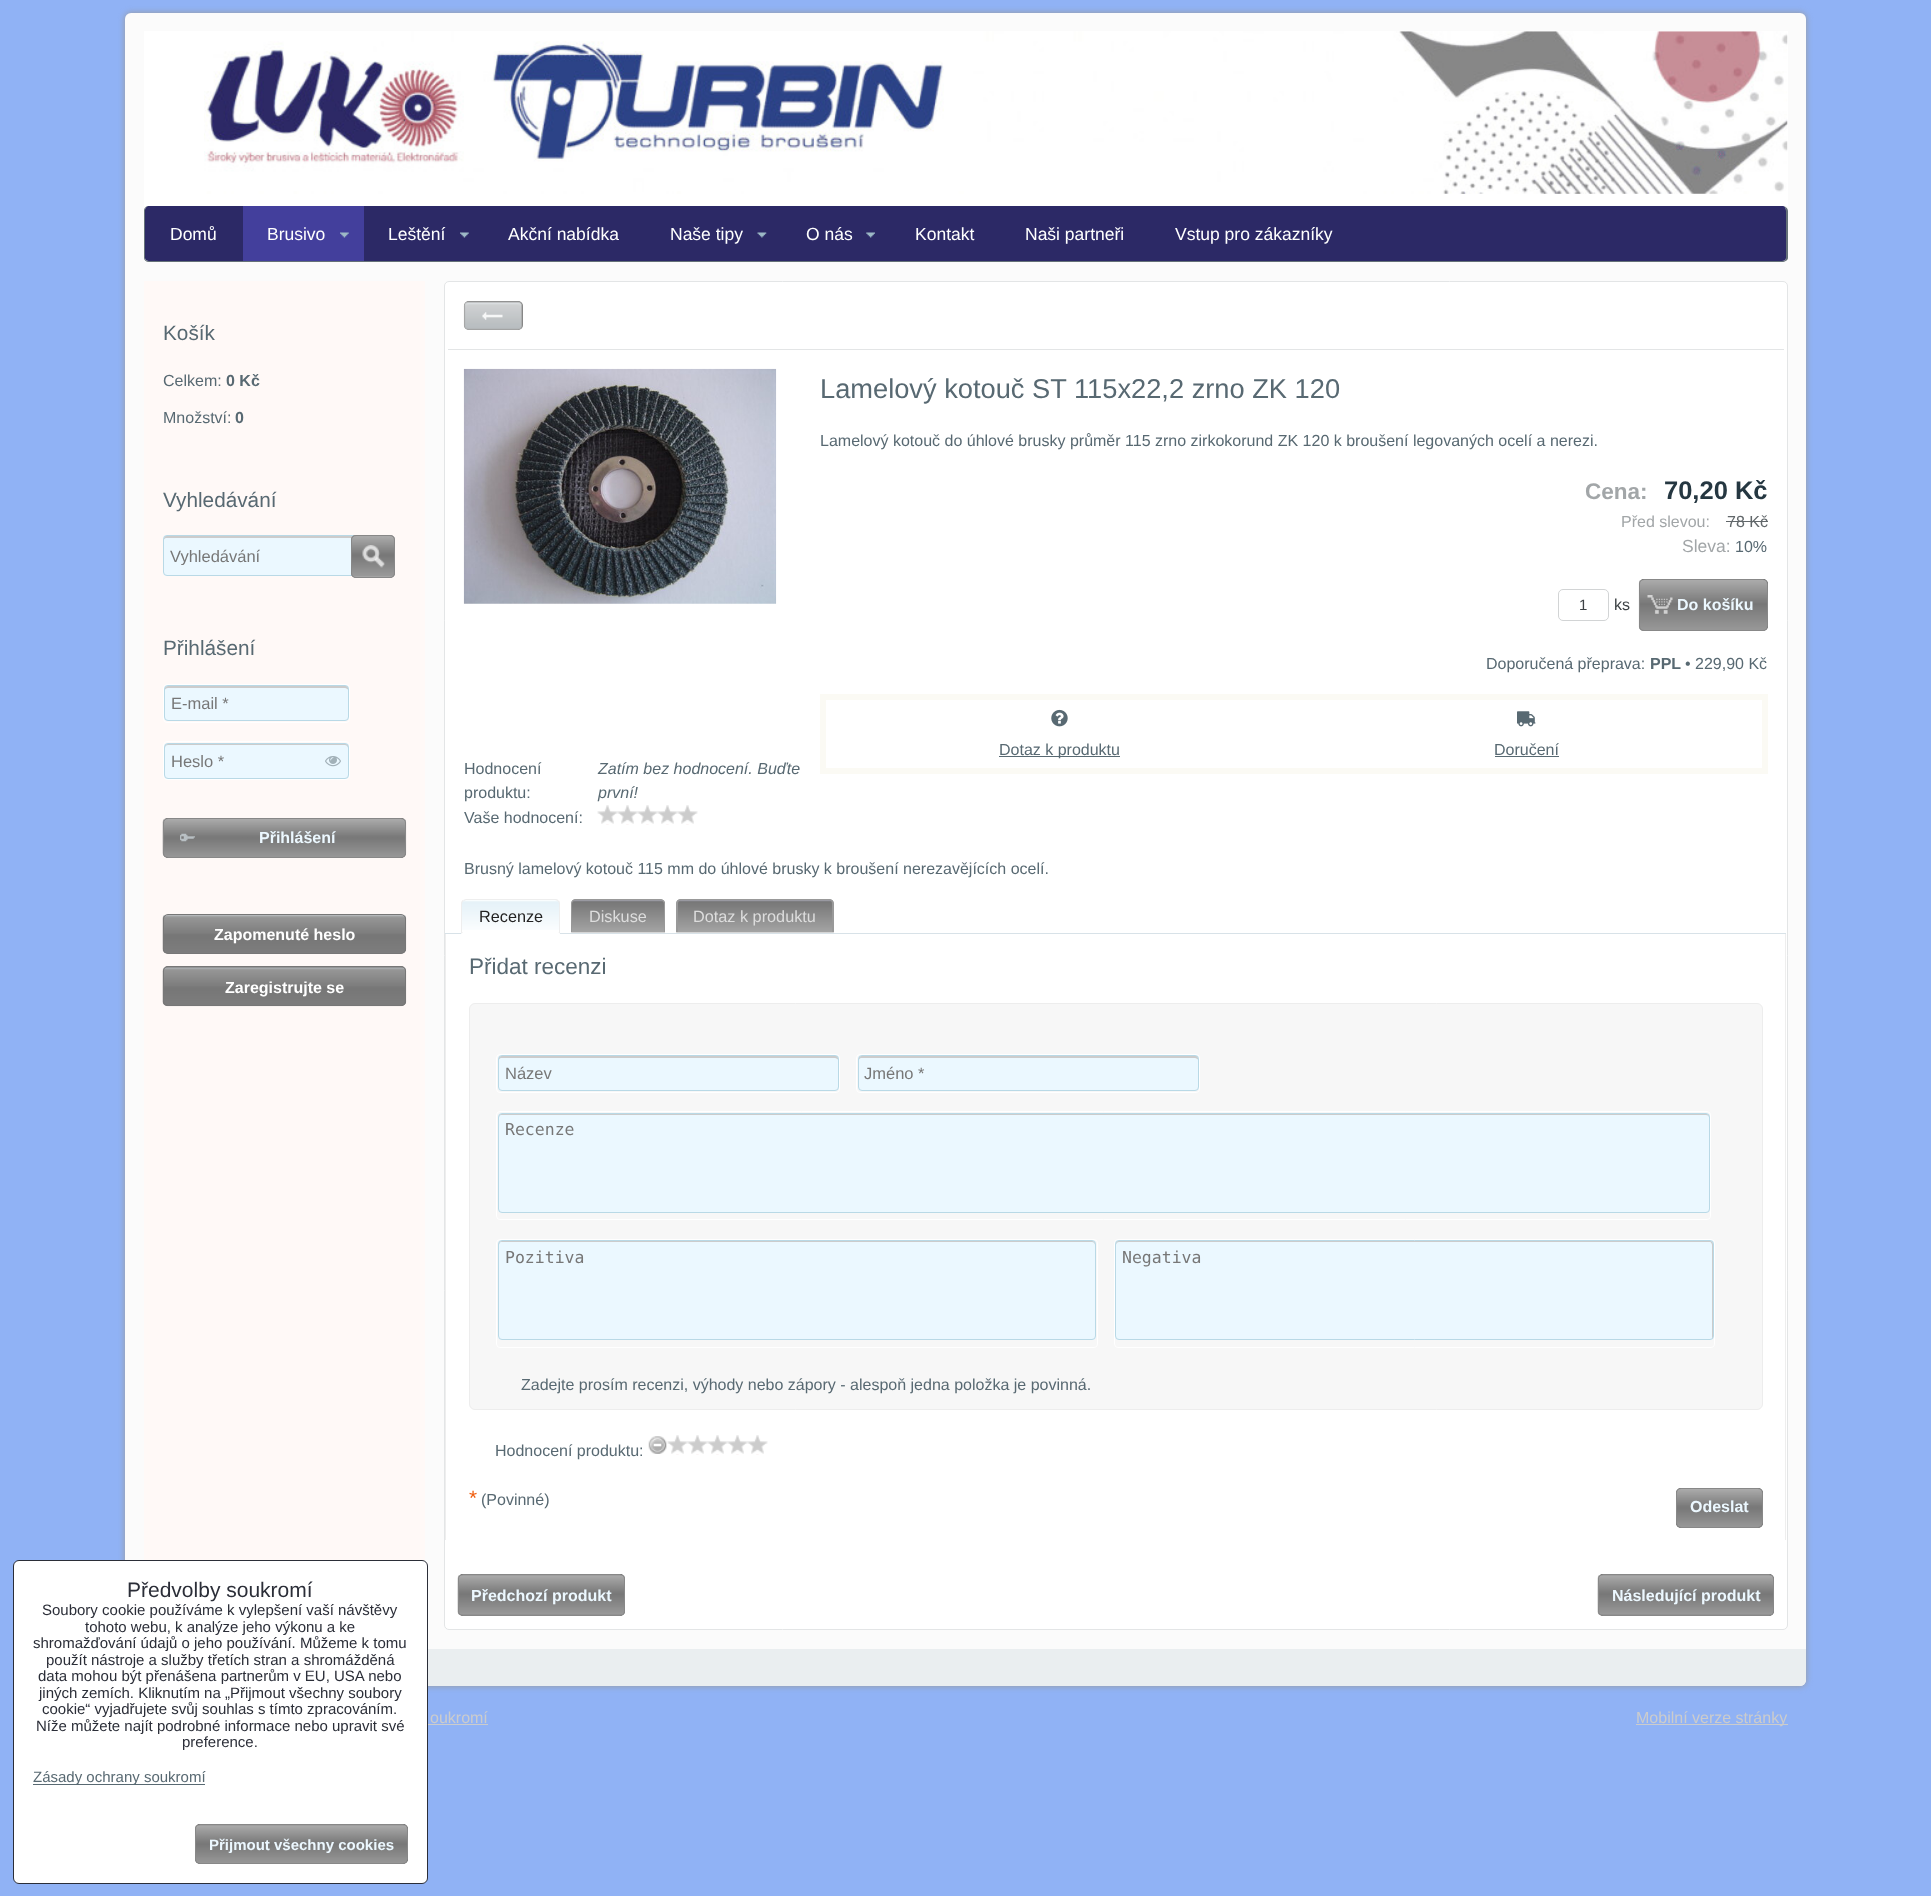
<!DOCTYPE html>
<meta charset="utf-8">
<style>body { margin: 0 } canvas { display: block }</style>
<canvas id="canvas" width="1931" height="1896"></canvas>
<script type="module">
  const canvas = document.getElementById("canvas");
  const g = canvas.getContext("2d");
  g.miterLimit = 4;
  g.fontKerning = "normal";
  function drawText(s, x, y, [font, color]) {
    g.font = font;
    g.fillStyle = color;
    g.fillText(s, x, y);
  }
  function fillBox(x, y, w, h, color) {
    g.fillStyle = color;
    g.fillRect(x, y, w, h);
  }
  function fillRounded(x, y, w, h, r, color) {
    g.fillStyle = color;
    g.beginPath();
    g.roundRect(x, y, w, h, r);
    g.fill();
  }
  async function drawPicture(src, x, y, w, h) {
    const img = new Image();
    img.src = src;
    await img.decode();
    g.drawImage(img, x, y, w, h);
  }

  const s1 = ["17.5px Liberation Sans", "#FFFFFF"];
  const s2 = ["20.75px Liberation Sans", "#586972"];
  const s3 = ["16px Liberation Sans", "#586972"];
  const s4 = ["bold 16px Liberation Sans", "#586972"];
  const s5 = ["16.5px Liberation Sans", "#777777"];
  const s6 = ["bold 16px Liberation Sans", "#ECF8FF"];
  const s7 = ["bold 16px Liberation Sans", "#FFFFFF"];
  const s8 = ["27.25px Liberation Sans", "#586972"];
  const s9 = ["bold 22.5px Liberation Sans", "#A2A6A8"];
  const s10 = ["bold 25.5px Liberation Sans", "#253741"];
  const s11 = ["16px Liberation Sans", "#A2A6A8"];
  const s12 = ["16px Liberation Sans", "#61676A"];
  const s13 = ["17.5px Liberation Sans", "#A2A6A8"];
  const s14 = ["15px Liberation Sans", "#3D4245"];
  const s15 = ["16px Liberation Sans", "#3D4245"];
  const s16 = ["italic 16px Liberation Sans", "#586972"];
  const s17 = ["16.25px Liberation Sans", "#222222"];
  const s18 = ["16.25px Liberation Sans", "#DDDDDD"];
  const s19 = ["22.5px Liberation Sans", "#586972"];
  const s20 = ["16.5px DejaVu Sans Mono", "#777777"];
  const s21 = ["20.75px Liberation Sans", "#F05E0F"];
  const s22 = ["16px Liberation Sans", "#CCCCCC"];
  const s23 = ["21px Liberation Sans", "#2B2E38"];
  const s24 = ["15px Liberation Sans", "#2B2E38"];
  const s25 = ["15px Liberation Sans", "#586972"];
  const s26 = ["bold 15px Liberation Sans", "#ECF8FF"];

  fillBox(0, 0, 1931, 1896, "#90B2F5");
  g.fillStyle = "#999999";
  g.filter = "blur(3px)";
  g.beginPath();
  g.roundRect(125, 13, 1681, 1673, 6);
  g.fill();
  g.filter = "none";
  fillRounded(125, 13, 1681, 1673, 6, "#FBFBFB");
  fillBox(144, 31, 1644, 175, "#FFFFFF");
  await drawPicture("pic1.png", 204, 31, 1584, 163);
  g.fillStyle = "#2C2966";
  g.beginPath();
  g.moveTo(149, 206);
  g.lineTo(1782, 206);
  g.bezierCurveTo(1785, 206, 1786, 208, 1786, 211);
  g.lineTo(1786, 258);
  g.bezierCurveTo(1786, 260, 1785, 261, 1782, 261);
  g.lineTo(149, 261);
  g.bezierCurveTo(147, 261, 145, 260, 145, 258);
  g.lineTo(145, 211);
  g.bezierCurveTo(145, 208, 147, 206, 149, 206);
  g.closePath();
  g.fill();
  g.fillStyle = "#657178";
  g.beginPath();
  g.moveTo(149, 206);
  g.lineTo(1782, 206);
  g.bezierCurveTo(1785, 206, 1788, 208, 1788, 211);
  g.lineTo(1788, 258);
  g.bezierCurveTo(1788, 260, 1785, 262, 1782, 262);
  g.lineTo(149, 262);
  g.bezierCurveTo(146, 262, 144, 260, 144, 258);
  g.lineTo(144, 211);
  g.bezierCurveTo(144, 208, 146, 206, 149, 206);
  g.closePath();
  g.moveTo(149, 206);
  g.lineTo(1782, 206);
  g.bezierCurveTo(1785, 206, 1786, 208, 1786, 211);
  g.lineTo(1786, 258);
  g.bezierCurveTo(1786, 260, 1785, 261, 1782, 261);
  g.lineTo(149, 261);
  g.bezierCurveTo(147, 261, 145, 260, 145, 258);
  g.lineTo(145, 211);
  g.bezierCurveTo(145, 208, 147, 206, 149, 206);
  g.closePath();
  g.fill("evenodd");
  g.fillStyle = "#2C2966";
  g.beginPath();
  g.roundRect(145, 206, 98, 55, [5, 0, 0, 5]);
  g.fill();
  drawText("Domů", 170, 240, s1);
  fillBox(243, 206, 121, 55, "#433F9C");
  drawText("Brusivo", 267, 240, s1);
  await drawPicture("pic2.png", 340, 232, 9, 6);
  drawText("Leštění", 388, 240, s1);
  await drawPicture("pic3.png", 460, 232, 9, 6);
  drawText("Akční nabídka", 508, 240, s1);
  drawText("Naše tipy", 670, 240, s1);
  await drawPicture("pic4.png", 757, 232, 10, 6);
  drawText("O nás", 806, 240, s1);
  await drawPicture("pic5.png", 866, 232, 9, 6);
  drawText("Kontakt", 915, 240, s1);
  drawText("Naši partneři", 1025, 240, s1);
  drawText("Vstup pro zákazníky", 1175, 240, s1);
  fillBox(144, 281, 281, 1280, "#FFF9F7");
  drawText("Košík", 163, 340, s2);
  drawText("Celkem:", 163, 386, s3);
  drawText("0 Kč", 226, 386, s4);
  drawText("Množství:", 163, 423, s3);
  drawText("0", 235, 423, s4);
  drawText("Vyhledávání", 163, 507, s2);
  fillRounded(163, 535, 195, 41, 4, "#EBF8FF");
  g.fillStyle = "#CCCCCC";
  g.beginPath();
  g.moveTo(166, 538);
  g.lineTo(354, 538);
  g.lineTo(356, 539);
  g.lineTo(356, 540);
  g.bezierCurveTo(356, 538, 356, 536, 354, 536);
  g.lineTo(166, 536);
  g.bezierCurveTo(164, 536, 164, 538, 164, 540);
  g.bezierCurveTo(164, 539, 165, 538, 166, 538);
  g.closePath();
  g.fill();
  g.beginPath();
  g.roundRect(163.5, 535.5, 194, 40, 3.5);
  g.strokeStyle = "#B9D9E6";
  g.stroke();
  g.save();
  g.beginPath();
  g.rect(170, 546, 180, 19);
  g.clip();
  drawText("Vyhledávání", 170, 562, s5);
  g.restore();
  g.fillStyle = "#444444";
  g.filter = "blur(0.5px)";
  g.beginPath();
  g.roundRect(351, 535, 44, 43, 5);
  g.fill();
  g.filter = "none";
  fillRounded(351, 535, 44, 43, 5, "#AAAAAA");
  await drawPicture("pic6.png", 351, 536, 44, 41);
  g.beginPath();
  g.roundRect(351.5, 535.5, 43, 42, 4.5);
  g.strokeStyle = "#888888";
  g.stroke();
  await drawPicture("pic7.png", 362, 545, 23, 23);
  drawText("Přihlášení", 163, 655, s2);
  g.beginPath();
  g.roundRect(163.5, 684.5, 186, 38, 3.5);
  g.strokeStyle = "#FFFFFF";
  g.stroke();
  fillRounded(164, 685, 185, 36, 4, "#EBF8FF");
  g.fillStyle = "#CCCCCC";
  g.beginPath();
  g.moveTo(168, 688);
  g.lineTo(345, 688);
  g.bezierCurveTo(346, 688, 348, 689, 348, 690);
  g.lineTo(348, 688);
  g.bezierCurveTo(348, 687, 347, 686, 346, 686);
  g.lineTo(168, 686);
  g.bezierCurveTo(166, 686, 165, 687, 165, 688);
  g.lineTo(165, 690);
  g.bezierCurveTo(165, 689, 166, 688, 168, 688);
  g.closePath();
  g.fill();
  g.beginPath();
  g.roundRect(164.5, 685.5, 184, 35, 3.5);
  g.strokeStyle = "#B9D9E6";
  g.stroke();
  drawText("E-mail *", 171, 709, s5);
  g.beginPath();
  g.roundRect(163.5, 741.5, 186, 38, 3.5);
  g.strokeStyle = "#FFFFFF";
  g.stroke();
  fillRounded(164, 743, 185, 36, 4, "#EBF8FF");
  g.fillStyle = "#CCCCCC";
  g.beginPath();
  g.moveTo(168, 745);
  g.lineTo(345, 745);
  g.bezierCurveTo(346, 745, 348, 746, 348, 748);
  g.lineTo(348, 746);
  g.bezierCurveTo(348, 745, 347, 744, 346, 744);
  g.lineTo(168, 744);
  g.bezierCurveTo(166, 744, 165, 745, 165, 746);
  g.lineTo(165, 748);
  g.bezierCurveTo(165, 746, 166, 745, 168, 745);
  g.closePath();
  g.fill();
  g.beginPath();
  g.roundRect(164.5, 743.5, 184, 35, 3.5);
  g.strokeStyle = "#B9D9E6";
  g.stroke();
  drawText("Heslo *", 171, 767, s5);
  await drawPicture("pic8.png", 325, 756, 16, 11);
  g.fillStyle = "#444444";
  g.filter = "blur(0.5px)";
  g.beginPath();
  g.roundRect(163, 818, 243, 40, 5);
  g.fill();
  g.filter = "none";
  await drawPicture("pic9.png", 162, 818, 245, 40);
  g.beginPath();
  g.roundRect(163.5, 818.5, 242, 39, 4.5);
  g.strokeStyle = "#888888";
  g.stroke();
  await drawPicture("pic10.png", 180, 833, 15, 9);
  drawText("Přihlášení", 259, 843, s6);
  await drawPicture("pic11.png", 162, 914, 245, 40);
  g.beginPath();
  g.roundRect(163.5, 914.5, 242, 39, 4.5);
  g.strokeStyle = "#777777";
  g.stroke();
  drawText("Zapomenuté heslo", 214, 940, s7);
  fillRounded(163, 966, 243, 40, 5, "#7D7D7D");
  await drawPicture("pic12.png", 162, 967, 245, 40);
  g.beginPath();
  g.roundRect(163.5, 966.5, 242, 39, 4.5);
  g.stroke();
  drawText("Zaregistrujte se", 225, 993, s7);
  g.beginPath();
  g.roundRect(444.5, 281.5, 1343, 1348, 4.5);
  g.fill();
  g.strokeStyle = "#E3E5E6";
  g.stroke();
  fillBox(448, 349, 1336, 1, "#E3E5E6");
  fillRounded(464, 301, 59, 29, 5, "#7D7D7D");
  await drawPicture("pic13.png", 463, 301, 60, 29);
  await drawPicture("pic14.png", 482, 312, 21, 8);
  await drawPicture("pic15.png", 463, 368, 314, 236);
  drawText("Lamelový kotouč ST 115x22,2 zrno ZK 120", 820, 398, s8);
  drawText("Lamelový kotouč do úhlové brusky průměr 115 zrno zirkokorund ZK 120 k broušení legovaných ocelí a nerezi.", 820, 446, s3);
  drawText("Cena:", 1585, 499, s9);
  drawText("70,20 Kč", 1664, 499, s10);
  drawText("Před slevou:", 1621, 527, s11);
  drawText("78 Kč", 1727, 527, s12);
  fillBox(1726, 521, 42, 1, "#61676A");
  drawText("Sleva:", 1682, 552, s13);
  drawText("10%", 1735, 552, s3);
  g.beginPath();
  g.roundRect(1558.5, 589.5, 50, 31, 4.5);
  g.strokeStyle = "#D2D4D5";
  g.stroke();
  drawText("1", 1579, 610, s14);
  drawText("ks", 1614, 610, s15);
  g.fillStyle = "#444444";
  g.filter = "blur(0.5px)";
  g.beginPath();
  g.roundRect(1639, 579, 129, 52, 5);
  g.fill();
  g.filter = "none";
  await drawPicture("pic16.png", 1638, 580, 130, 51);
  g.beginPath();
  g.roundRect(1639.5, 579.5, 128, 51, 4.5);
  g.strokeStyle = "#888888";
  g.stroke();
  await drawPicture("pic17.png", 1647, 595, 26, 19);
  drawText("Do košíku", 1677, 610, s6);
  drawText("Doporučená přeprava:", 1486, 669, s3);
  drawText("PPL", 1650, 669, s4);
  drawText("• 229,90 Kč", 1685, 669, s3);
  g.strokeStyle = "#FBFAF4";
  g.lineWidth = 6;
  g.strokeRect(823, 697, 942, 74);
  await drawPicture("pic18.png", 1051, 709, 17, 18);
  fillBox(999, 756, 121, 1, "#586972");
  drawText("Dotaz k produktu", 999, 755, s3);
  await drawPicture("pic19.png", 1517, 711, 19, 16);
  drawText("Doručení", 1494, 755, s3);
  fillBox(1495, 756, 64, 1, "#586972");
  drawText("Hodnocení", 464, 774, s3);
  drawText("produktu:", 464, 798, s3);
  drawText("Zatím bez hodnocení. Buďte", 598, 774, s16);
  drawText("první!", 598, 798, s16);
  drawText("Vaše hodnocení:", 464, 823, s3);
  await drawPicture("pic20.png", 597, 805, 101, 20);
  drawText("Brusný lamelový kotouč 115 mm do úhlové brusky k broušení nerezavějících ocelí.", 464, 874, s3);
  fillBox(445, 933, 1341, 1, "#D8E2E8");
  g.fillStyle = "#FFFFFF";
  g.beginPath();
  g.roundRect(461, 899, 99, 35, [5, 5, 0, 0]);
  g.fill();
  await drawPicture("pic21.png", 461, 900, 99, 30);
  g.fillStyle = "#EEEEEE";
  g.beginPath();
  g.moveTo(466, 899);
  g.lineTo(463, 900);
  g.lineTo(464, 901);
  g.lineTo(466, 900);
  g.lineTo(555, 900);
  g.lineTo(558, 901);
  g.lineTo(558, 900);
  g.bezierCurveTo(558, 899, 556, 899, 555, 899);
  g.closePath();
  g.fill();
  g.beginPath();
  g.moveTo(558.5, 900.5);
  g.bezierCurveTo(559.5, 901, 560, 902.5, 560, 904);
  g.lineTo(560, 934);
  g.lineTo(558, 932);
  g.lineTo(559, 932);
  g.lineTo(559, 904);
  g.bezierCurveTo(559, 903, 558.5, 902, 557.5, 901);
  g.closePath();
  g.fill();
  g.fillStyle = "#FFFFFF";
  g.beginPath();
  g.moveTo(560, 934);
  g.lineTo(558, 932);
  g.lineTo(463, 932);
  g.lineTo(461, 934);
  g.closePath();
  g.fill();
  g.fillStyle = "#EEEEEE";
  g.beginPath();
  g.moveTo(461, 934);
  g.lineTo(463, 932);
  g.lineTo(462, 932);
  g.lineTo(462, 904);
  g.bezierCurveTo(462, 903, 462.5, 902, 463.5, 901);
  g.lineTo(462.5, 900);
  g.lineTo(461, 902.5);
  g.closePath();
  g.fill();
  drawText("Recenze", 479, 922, s17);
  g.fillStyle = "#E6E6E6";
  g.beginPath();
  g.roundRect(571, 899, 94, 34, [5, 5, 0, 0]);
  g.fill();
  await drawPicture("pic22.png", 571, 899, 94, 34);
  g.fillStyle = "#999999";
  g.beginPath();
  g.moveTo(576, 899);
  g.lineTo(660, 899);
  g.bezierCurveTo(663, 899, 665, 901, 665, 904);
  g.lineTo(665, 932);
  g.lineTo(571, 932);
  g.lineTo(571, 904);
  g.bezierCurveTo(571, 901, 573, 899, 576, 899);
  g.closePath();
  g.moveTo(576, 900);
  g.lineTo(660, 900);
  g.bezierCurveTo(662, 900, 664, 902, 664, 904);
  g.lineTo(664, 932);
  g.lineTo(572, 932);
  g.lineTo(572, 904);
  g.bezierCurveTo(572, 902, 574, 900, 576, 900);
  g.closePath();
  g.fill("evenodd");
  drawText("Diskuse", 589, 922, s18);
  g.fillStyle = "#E6E6E6";
  g.beginPath();
  g.roundRect(676, 899, 158, 34, [5, 5, 0, 0]);
  g.fill();
  await drawPicture("pic23.png", 676, 899, 158, 34);
  g.fillStyle = "#999999";
  g.beginPath();
  g.moveTo(681, 899);
  g.lineTo(829, 899);
  g.bezierCurveTo(832, 899, 834, 901, 834, 904);
  g.lineTo(834, 932);
  g.lineTo(676, 932);
  g.lineTo(676, 904);
  g.bezierCurveTo(676, 901, 678, 899, 681, 899);
  g.closePath();
  g.moveTo(681, 900);
  g.lineTo(829, 900);
  g.bezierCurveTo(831, 900, 832, 902, 832, 904);
  g.lineTo(832, 932);
  g.lineTo(678, 932);
  g.lineTo(678, 904);
  g.bezierCurveTo(678, 902, 679, 900, 681, 900);
  g.closePath();
  g.fill("evenodd");
  drawText("Dotaz k produktu", 693, 922, s18);
  fillBox(1785, 934, 1, 606, "#EEEEEE");
  fillBox(445, 934, 1, 606, "#EEEEEE");
  drawText("Přidat recenzi", 469, 974, s19);
  g.fillStyle = "#F7F7F7";
  g.beginPath();
  g.roundRect(469.5, 1003.5, 1293, 406, 5.5);
  g.fill();
  g.strokeStyle = "#EDEDED";
  g.lineWidth = 1;
  g.stroke();
  g.beginPath();
  g.roundRect(496.5, 1054.5, 343, 38, 3.5);
  g.strokeStyle = "#FFFFFF";
  g.stroke();
  fillRounded(498, 1055, 341, 36, 4, "#EBF8FF");
  g.fillStyle = "#CCCCCC";
  g.beginPath();
  g.moveTo(501, 1058);
  g.lineTo(835, 1058);
  g.bezierCurveTo(836, 1058, 838, 1059, 838, 1060);
  g.bezierCurveTo(838, 1058, 838, 1056, 836, 1056);
  g.lineTo(501, 1056);
  g.lineTo(499, 1057);
  g.lineTo(499, 1060);
  g.bezierCurveTo(499, 1059, 500, 1058, 501, 1058);
  g.closePath();
  g.fill();
  g.beginPath();
  g.roundRect(498.5, 1055.5, 340, 35, 3.5);
  g.strokeStyle = "#B9D9E6";
  g.stroke();
  drawText("Název", 505, 1079, s5);
  g.beginPath();
  g.roundRect(856.5, 1054.5, 343, 38, 3.5);
  g.strokeStyle = "#FFFFFF";
  g.stroke();
  fillRounded(858, 1055, 341, 36, 4, "#EBF8FF");
  g.fillStyle = "#CCCCCC";
  g.beginPath();
  g.moveTo(861, 1058);
  g.lineTo(1195, 1058);
  g.bezierCurveTo(1196, 1058, 1198, 1059, 1198, 1060);
  g.bezierCurveTo(1198, 1058, 1198, 1056, 1196, 1056);
  g.lineTo(861, 1056);
  g.lineTo(859, 1057);
  g.lineTo(859, 1060);
  g.bezierCurveTo(859, 1059, 860, 1058, 861, 1058);
  g.closePath();
  g.fill();
  g.beginPath();
  g.roundRect(858.5, 1055.5, 340, 35, 3.5);
  g.strokeStyle = "#B9D9E6";
  g.stroke();
  drawText("Jméno *", 864, 1079, s5);
  g.beginPath();
  g.roundRect(496.5, 1111.5, 1214, 108, 3.5);
  g.strokeStyle = "#FFFFFF";
  g.stroke();
  fillRounded(498, 1113, 1212, 100, 4, "#EBF8FF");
  g.fillStyle = "#CCCCCC";
  g.beginPath();
  g.moveTo(501, 1115);
  g.lineTo(1706, 1115);
  g.bezierCurveTo(1708, 1115, 1709, 1116, 1709, 1118);
  g.bezierCurveTo(1709, 1116, 1709, 1114, 1706, 1114);
  g.lineTo(502, 1114);
  g.bezierCurveTo(499, 1114, 499, 1116, 499, 1118);
  g.bezierCurveTo(499, 1116, 500, 1115, 501, 1115);
  g.closePath();
  g.fill();
  g.beginPath();
  g.roundRect(498.5, 1113.5, 1211, 99, 3.5);
  g.strokeStyle = "#B9D9E6";
  g.stroke();
  drawText("Recenze", 505, 1135, s20);
  g.beginPath();
  g.roundRect(496.5, 1239.5, 601, 108, 3.5);
  g.strokeStyle = "#FFFFFF";
  g.stroke();
  fillRounded(498, 1240, 598, 100, 4, "#EBF8FF");
  g.fillStyle = "#CCCCCC";
  g.beginPath();
  g.moveTo(501, 1242);
  g.lineTo(1092, 1242);
  g.bezierCurveTo(1094, 1242, 1095, 1244, 1095, 1245);
  g.lineTo(1095, 1244);
  g.bezierCurveTo(1095, 1242, 1094, 1241, 1092, 1241);
  g.lineTo(502, 1241);
  g.bezierCurveTo(500, 1241, 499, 1242, 499, 1244);
  g.lineTo(499, 1245);
  g.bezierCurveTo(499, 1244, 500, 1242, 501, 1242);
  g.closePath();
  g.fill();
  g.beginPath();
  g.roundRect(498.5, 1240.5, 597, 99, 3.5);
  g.strokeStyle = "#B9D9E6";
  g.stroke();
  drawText("Pozitiva", 505, 1263, s20);
  g.beginPath();
  g.roundRect(1114.5, 1239.5, 600, 108, 3.5);
  g.strokeStyle = "#FFFFFF";
  g.stroke();
  fillRounded(1115, 1240, 599, 100, 4, "#EBF8FF");
  g.fillStyle = "#CCCCCC";
  g.beginPath();
  g.moveTo(1119, 1242);
  g.lineTo(1710, 1242);
  g.bezierCurveTo(1711, 1242, 1712, 1244, 1712, 1245);
  g.lineTo(1712, 1339);
  g.bezierCurveTo(1713, 1338, 1713, 1337, 1713, 1336);
  g.lineTo(1713, 1244);
  g.bezierCurveTo(1713, 1242, 1712, 1241, 1710, 1241);
  g.lineTo(1118, 1241);
  g.bezierCurveTo(1117, 1241, 1116, 1242, 1116, 1244);
  g.lineTo(1116, 1245);
  g.bezierCurveTo(1116, 1244, 1117, 1242, 1119, 1242);
  g.closePath();
  g.fill();
  g.beginPath();
  g.roundRect(1115.5, 1240.5, 598, 99, 3.5);
  g.strokeStyle = "#B9D9E6";
  g.stroke();
  drawText("Negativa", 1122, 1263, s20);
  drawText("Zadejte prosím recenzi, výhody nebo zápory - alespoň jedna položka je povinná.", 521, 1390, s3);
  drawText("Hodnocení produktu:", 495, 1456, s3);
  await drawPicture("pic24.png", 648, 1436, 19, 18);
  await drawPicture("pic25.png", 667, 1435, 101, 20);
  drawText("*", 469, 1505, s21);
  drawText("(Povinné)", 481, 1505, s3);
  g.fillStyle = "#444444";
  g.filter = "blur(0.5px)";
  g.beginPath();
  g.roundRect(1676, 1488, 87, 40, 5);
  g.fill();
  g.filter = "none";
  await drawPicture("pic26.png", 1676, 1488, 87, 40);
  g.beginPath();
  g.roundRect(1676.5, 1488.5, 86, 39, 4.5);
  g.strokeStyle = "#888888";
  g.stroke();
  drawText("Odeslat", 1690, 1512, s6);
  g.fillStyle = "#444444";
  g.filter = "blur(0.5px)";
  g.beginPath();
  g.roundRect(458, 1574, 167, 42, 5);
  g.fill();
  g.filter = "none";
  await drawPicture("pic27.png", 457, 1575, 168, 41);
  g.beginPath();
  g.roundRect(458.5, 1574.5, 166, 41, 4.5);
  g.stroke();
  drawText("Předchozí produkt", 471, 1601, s6);
  g.fillStyle = "#444444";
  g.filter = "blur(0.5px)";
  g.beginPath();
  g.roundRect(1598, 1574, 176, 42, 5);
  g.fill();
  g.filter = "none";
  await drawPicture("pic28.png", 1597, 1575, 177, 41);
  g.beginPath();
  g.roundRect(1598.5, 1574.5, 175, 41, 4.5);
  g.stroke();
  drawText("Následující produkt", 1612, 1601, s6);
  g.fillStyle = "#EAEEF0";
  g.beginPath();
  g.roundRect(125, 1649, 1681, 37, [0, 0, 6, 6]);
  g.fill();
  drawText("oukromí", 430, 1723, s22);
  fillBox(428, 1724, 60, 1, "#CCCCCC");
  fillBox(1636, 1724, 152, 1, "#CCCCCC");
  drawText("Mobilní verze stránky", 1636, 1723, s22);
  g.fillStyle = "#FFFFFF";
  g.beginPath();
  g.roundRect(13.5, 1560.5, 414, 323, 5.5);
  g.fill();
  g.strokeStyle = "#2B2E38";
  g.stroke();
  drawText("Předvolby soukromí", 127, 1597, s23);
  drawText("Soubory cookie používáme k vylepšení vaší návštěvy", 42, 1615, s24);
  drawText("tohoto webu, k analýze jeho výkonu a ke", 85, 1632, s24);
  drawText("shromažďování údajů o jeho používání. Můžeme k tomu", 33, 1648, s24);
  drawText("použít nástroje a služby třetích stran a shromážděná", 46, 1665, s24);
  drawText("data mohou být přenášena partnerům v EU, USA nebo", 38, 1681, s24);
  drawText("jiných zemích. Kliknutím na „Přijmout všechny soubory", 39, 1698, s24);
  drawText("cookie“ vyjadřujete svůj souhlas s tímto zpracováním.", 42, 1714, s24);
  drawText("Níže můžete najít podrobné informace nebo upravit své", 36, 1731, s24);
  drawText("preference.", 182, 1747, s24);
  fillBox(33, 1784, 172, 1, "#586972");
  drawText("Zásady ochrany soukromí", 33, 1782, s25);
  g.fillStyle = "#444444";
  g.filter = "blur(0.5px)";
  g.beginPath();
  g.roundRect(195, 1824, 213, 40, 5);
  g.fill();
  g.filter = "none";
  await drawPicture("pic29.png", 195, 1825, 213, 39);
  g.beginPath();
  g.roundRect(195.5, 1824.5, 212, 39, 4.5);
  g.strokeStyle = "#888888";
  g.stroke();
  drawText("Přijmout všechny cookies", 209, 1850, s26);
</script>
